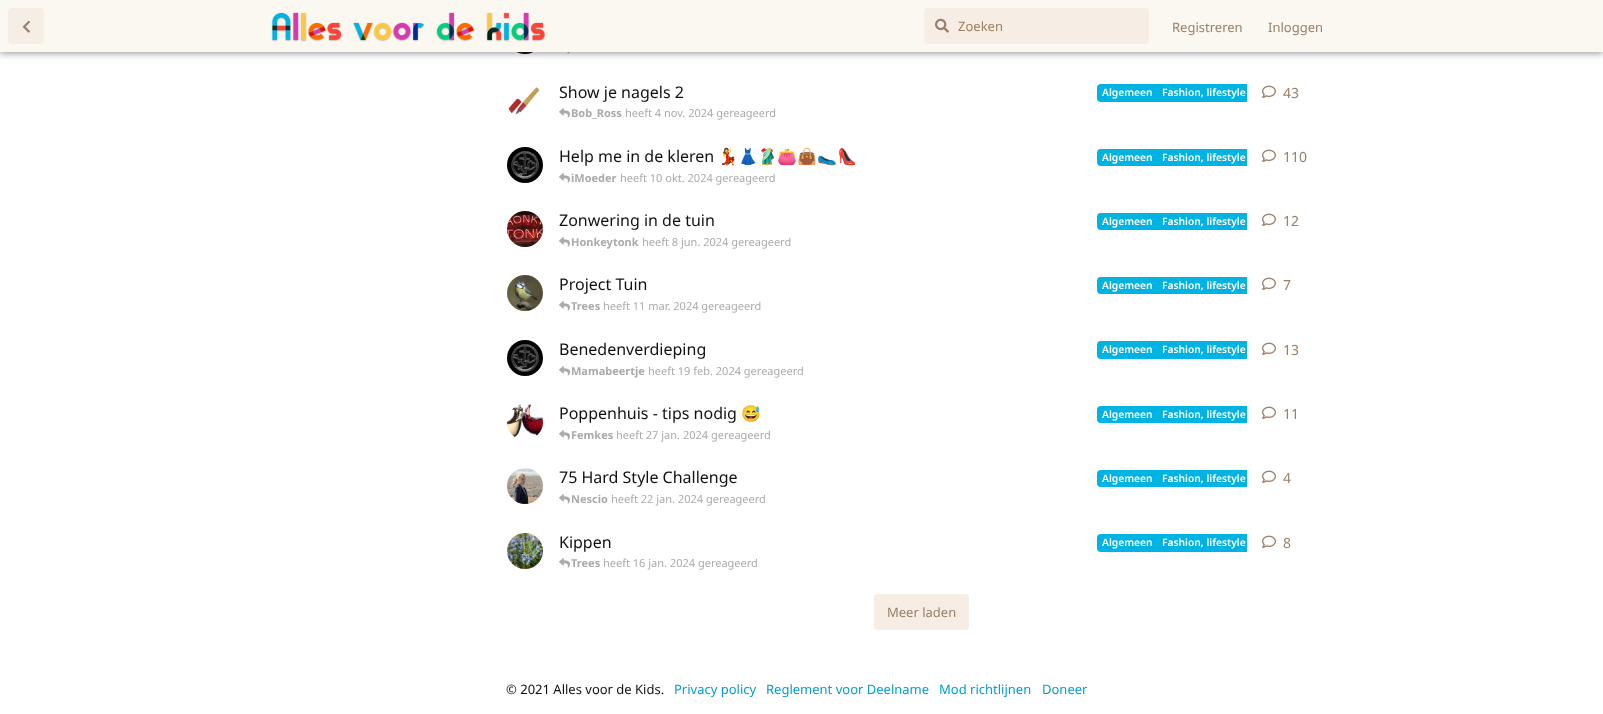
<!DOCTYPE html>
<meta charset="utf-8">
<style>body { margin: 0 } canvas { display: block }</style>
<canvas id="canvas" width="1603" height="714"></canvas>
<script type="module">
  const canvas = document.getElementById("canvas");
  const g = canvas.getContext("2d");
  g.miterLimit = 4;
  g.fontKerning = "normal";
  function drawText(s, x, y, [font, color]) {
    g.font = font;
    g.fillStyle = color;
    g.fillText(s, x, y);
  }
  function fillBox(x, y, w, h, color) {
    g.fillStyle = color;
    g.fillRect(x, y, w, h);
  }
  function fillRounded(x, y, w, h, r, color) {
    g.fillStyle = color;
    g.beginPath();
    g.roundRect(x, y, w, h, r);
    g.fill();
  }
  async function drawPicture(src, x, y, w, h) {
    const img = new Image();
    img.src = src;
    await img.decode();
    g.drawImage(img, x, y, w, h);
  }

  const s1 = ["13px Noto Sans", "#997F66"];
  const s2 = ["16px Noto Sans", "#111111"];
  const s3 = ["600 10.25px Noto Sans", "#FFFFFF"];
  const s4 = ["bold 11px Noto Sans", "#AAAAAA"];
  const s5 = ["11px Noto Sans", "#AAAAAA"];
  const s6 = ["14px Noto Sans", "#997F66"];
  const s7 = ["16px Noto Color Emoji", "#111111"];
  const s8 = ["13px Noto Sans", "#111111"];
  const s9 = ["13px Noto Sans", "#009ED3"];

  fillBox(0, 0, 1603, 714, "#FFFFFF");
  await drawPicture("pic4.png", 517, 52, 16, 2);
  await drawPicture("pic5.png", 567, 52, 3, 2);
  g.fillStyle = "rgba(0, 0, 0, 0.35)";
  g.filter = "blur(3px)";
  g.beginPath();
  g.rect(0, 2, 1603, 52);
  g.fill();
  g.filter = "none";
  fillBox(0, 0, 1603, 52, "#FAF8F1");
  fillRounded(8, 8, 36, 36, 4, "#F6EDE5");
  await drawPicture("pic1.png", 22, 20, 8, 13);
  await drawPicture("pic2.png", 271, 12, 275, 30);
  fillRounded(924, 8, 225, 36, 4, "#F6EDE5");
  await drawPicture("pic3.png", 935, 18, 14, 15);
  drawText("Zoeken", 958, 31, s1);
  drawText("Registreren", 1172, 32, s1);
  drawText("Inloggen", 1268, 32, s1);
  await drawPicture("pic6.png", 507, 83, 36, 36);
  drawText("Show je nagels 2", 559, 98, s2);
  g.fillStyle = "#00B3E3";
  g.beginPath();
  g.roundRect(1097, 84, 60, 18, [4, 0, 0, 4]);
  g.fill();
  drawText("Algemeen", 1102, 96, s3);
  fillBox(1157, 84, 90, 18, "#00B3E3");
  drawText("Fashion, lifestyle", 1162, 96, s3);
  await drawPicture("pic7.png", 559, 108, 11, 10);
  drawText("Bob_Ross", 571, 117, s4);
  drawText("heeft 4 nov. 2024 gereageerd", 625, 117, s5);
  await drawPicture("pic8.png", 1262, 85, 14, 13);
  drawText("43", 1283, 98, s6);
  await drawPicture("pic9.png", 507, 147, 36, 36);
  drawText("Help me in de kleren", 559, 162, s2);
  drawText("💃👗🥻👛👜🥿👠", 718, 162, s7);
  g.fillStyle = "#00B3E3";
  g.beginPath();
  g.roundRect(1097, 149, 60, 17, [4, 0, 0, 4]);
  g.fill();
  drawText("Algemeen", 1102, 161, s3);
  fillBox(1157, 149, 90, 17, "#00B3E3");
  drawText("Fashion, lifestyle", 1162, 161, s3);
  await drawPicture("pic7.png", 559, 173, 11, 10);
  drawText("iMoeder", 571, 182, s4);
  drawText("heeft 10 okt. 2024 gereageerd", 620, 182, s5);
  await drawPicture("pic8.png", 1262, 149, 14, 13);
  drawText("110", 1283, 162, s6);
  await drawPicture("pic10.png", 507, 211, 36, 36);
  drawText("Zonwering in de tuin", 559, 226, s2);
  g.fillStyle = "#00B3E3";
  g.beginPath();
  g.roundRect(1097, 213, 60, 17, [4, 0, 0, 4]);
  g.fill();
  drawText("Algemeen", 1102, 225, s3);
  fillBox(1157, 213, 90, 17, "#00B3E3");
  drawText("Fashion, lifestyle", 1162, 225, s3);
  await drawPicture("pic7.png", 559, 237, 11, 10);
  drawText("Honkeytonk", 571, 246, s4);
  drawText("heeft 8 jun. 2024 gereageerd", 642, 246, s5);
  await drawPicture("pic8.png", 1262, 213, 14, 13);
  drawText("12", 1283, 226, s6);
  await drawPicture("pic11.png", 507, 275, 36, 36);
  drawText("Project Tuin", 559, 290, s2);
  g.fillStyle = "#00B3E3";
  g.beginPath();
  g.roundRect(1097, 277, 60, 17, [4, 0, 0, 4]);
  g.fill();
  drawText("Algemeen", 1102, 289, s3);
  fillBox(1157, 277, 90, 17, "#00B3E3");
  drawText("Fashion, lifestyle", 1162, 289, s3);
  await drawPicture("pic7.png", 559, 301, 11, 10);
  drawText("Trees", 571, 310, s4);
  drawText("heeft 11 mar. 2024 gereageerd", 603, 310, s5);
  await drawPicture("pic8.png", 1262, 277, 14, 13);
  drawText("7", 1283, 290, s6);
  await drawPicture("pic9.png", 507, 340, 36, 36);
  drawText("Benedenverdieping", 559, 355, s2);
  g.fillStyle = "#00B3E3";
  g.beginPath();
  g.roundRect(1097, 341, 60, 18, [4, 0, 0, 4]);
  g.fill();
  drawText("Algemeen", 1102, 353, s3);
  fillBox(1157, 341, 90, 18, "#00B3E3");
  drawText("Fashion, lifestyle", 1162, 353, s3);
  await drawPicture("pic7.png", 559, 366, 11, 10);
  drawText("Mamabeertje", 571, 375, s4);
  drawText("heeft 19 feb. 2024 gereageerd", 648, 375, s5);
  await drawPicture("pic8.png", 1262, 342, 14, 13);
  drawText("13", 1283, 355, s6);
  await drawPicture("pic12.png", 507, 404, 36, 36);
  drawText("Poppenhuis - tips nodig", 559, 419, s2);
  drawText("😅", 741, 419, s7);
  g.fillStyle = "#00B3E3";
  g.beginPath();
  g.roundRect(1097, 406, 60, 17, [4, 0, 0, 4]);
  g.fill();
  drawText("Algemeen", 1102, 418, s3);
  fillBox(1157, 406, 90, 17, "#00B3E3");
  drawText("Fashion, lifestyle", 1162, 418, s3);
  await drawPicture("pic7.png", 559, 430, 11, 10);
  drawText("Femkes", 571, 439, s4);
  drawText("heeft 27 jan. 2024 gereageerd", 616, 439, s5);
  await drawPicture("pic8.png", 1262, 406, 14, 13);
  drawText("11", 1283, 419, s6);
  await drawPicture("pic13.png", 507, 468, 36, 36);
  drawText("75 Hard Style Challenge", 559, 483, s2);
  g.fillStyle = "#00B3E3";
  g.beginPath();
  g.roundRect(1097, 470, 60, 17, [4, 0, 0, 4]);
  g.fill();
  drawText("Algemeen", 1102, 482, s3);
  fillBox(1157, 470, 90, 17, "#00B3E3");
  drawText("Fashion, lifestyle", 1162, 482, s3);
  await drawPicture("pic7.png", 559, 494, 11, 10);
  drawText("Nescio", 571, 503, s4);
  drawText("heeft 22 jan. 2024 gereageerd", 611, 503, s5);
  await drawPicture("pic8.png", 1262, 470, 14, 13);
  drawText("4", 1283, 483, s6);
  await drawPicture("pic14.png", 507, 533, 36, 36);
  drawText("Kippen", 559, 548, s2);
  g.fillStyle = "#00B3E3";
  g.beginPath();
  g.roundRect(1097, 534, 60, 18, [4, 0, 0, 4]);
  g.fill();
  drawText("Algemeen", 1102, 546, s3);
  fillBox(1157, 534, 90, 18, "#00B3E3");
  drawText("Fashion, lifestyle", 1162, 546, s3);
  await drawPicture("pic7.png", 559, 558, 11, 10);
  drawText("Trees", 571, 567, s4);
  drawText("heeft 16 jan. 2024 gereageerd", 603, 567, s5);
  await drawPicture("pic8.png", 1262, 535, 14, 13);
  drawText("8", 1283, 548, s6);
  fillRounded(874, 594, 95, 36, 4, "#F6EDE5");
  drawText("Meer laden", 887, 617, s1);
  drawText("© 2021 Alles voor de Kids.", 506, 694, s8);
  drawText("Privacy policy", 674, 694, s9);
  drawText("Reglement voor Deelname", 766, 694, s9);
  drawText("Mod richtlijnen", 939, 694, s9);
  drawText("Doneer", 1042, 694, s9);
</script>
